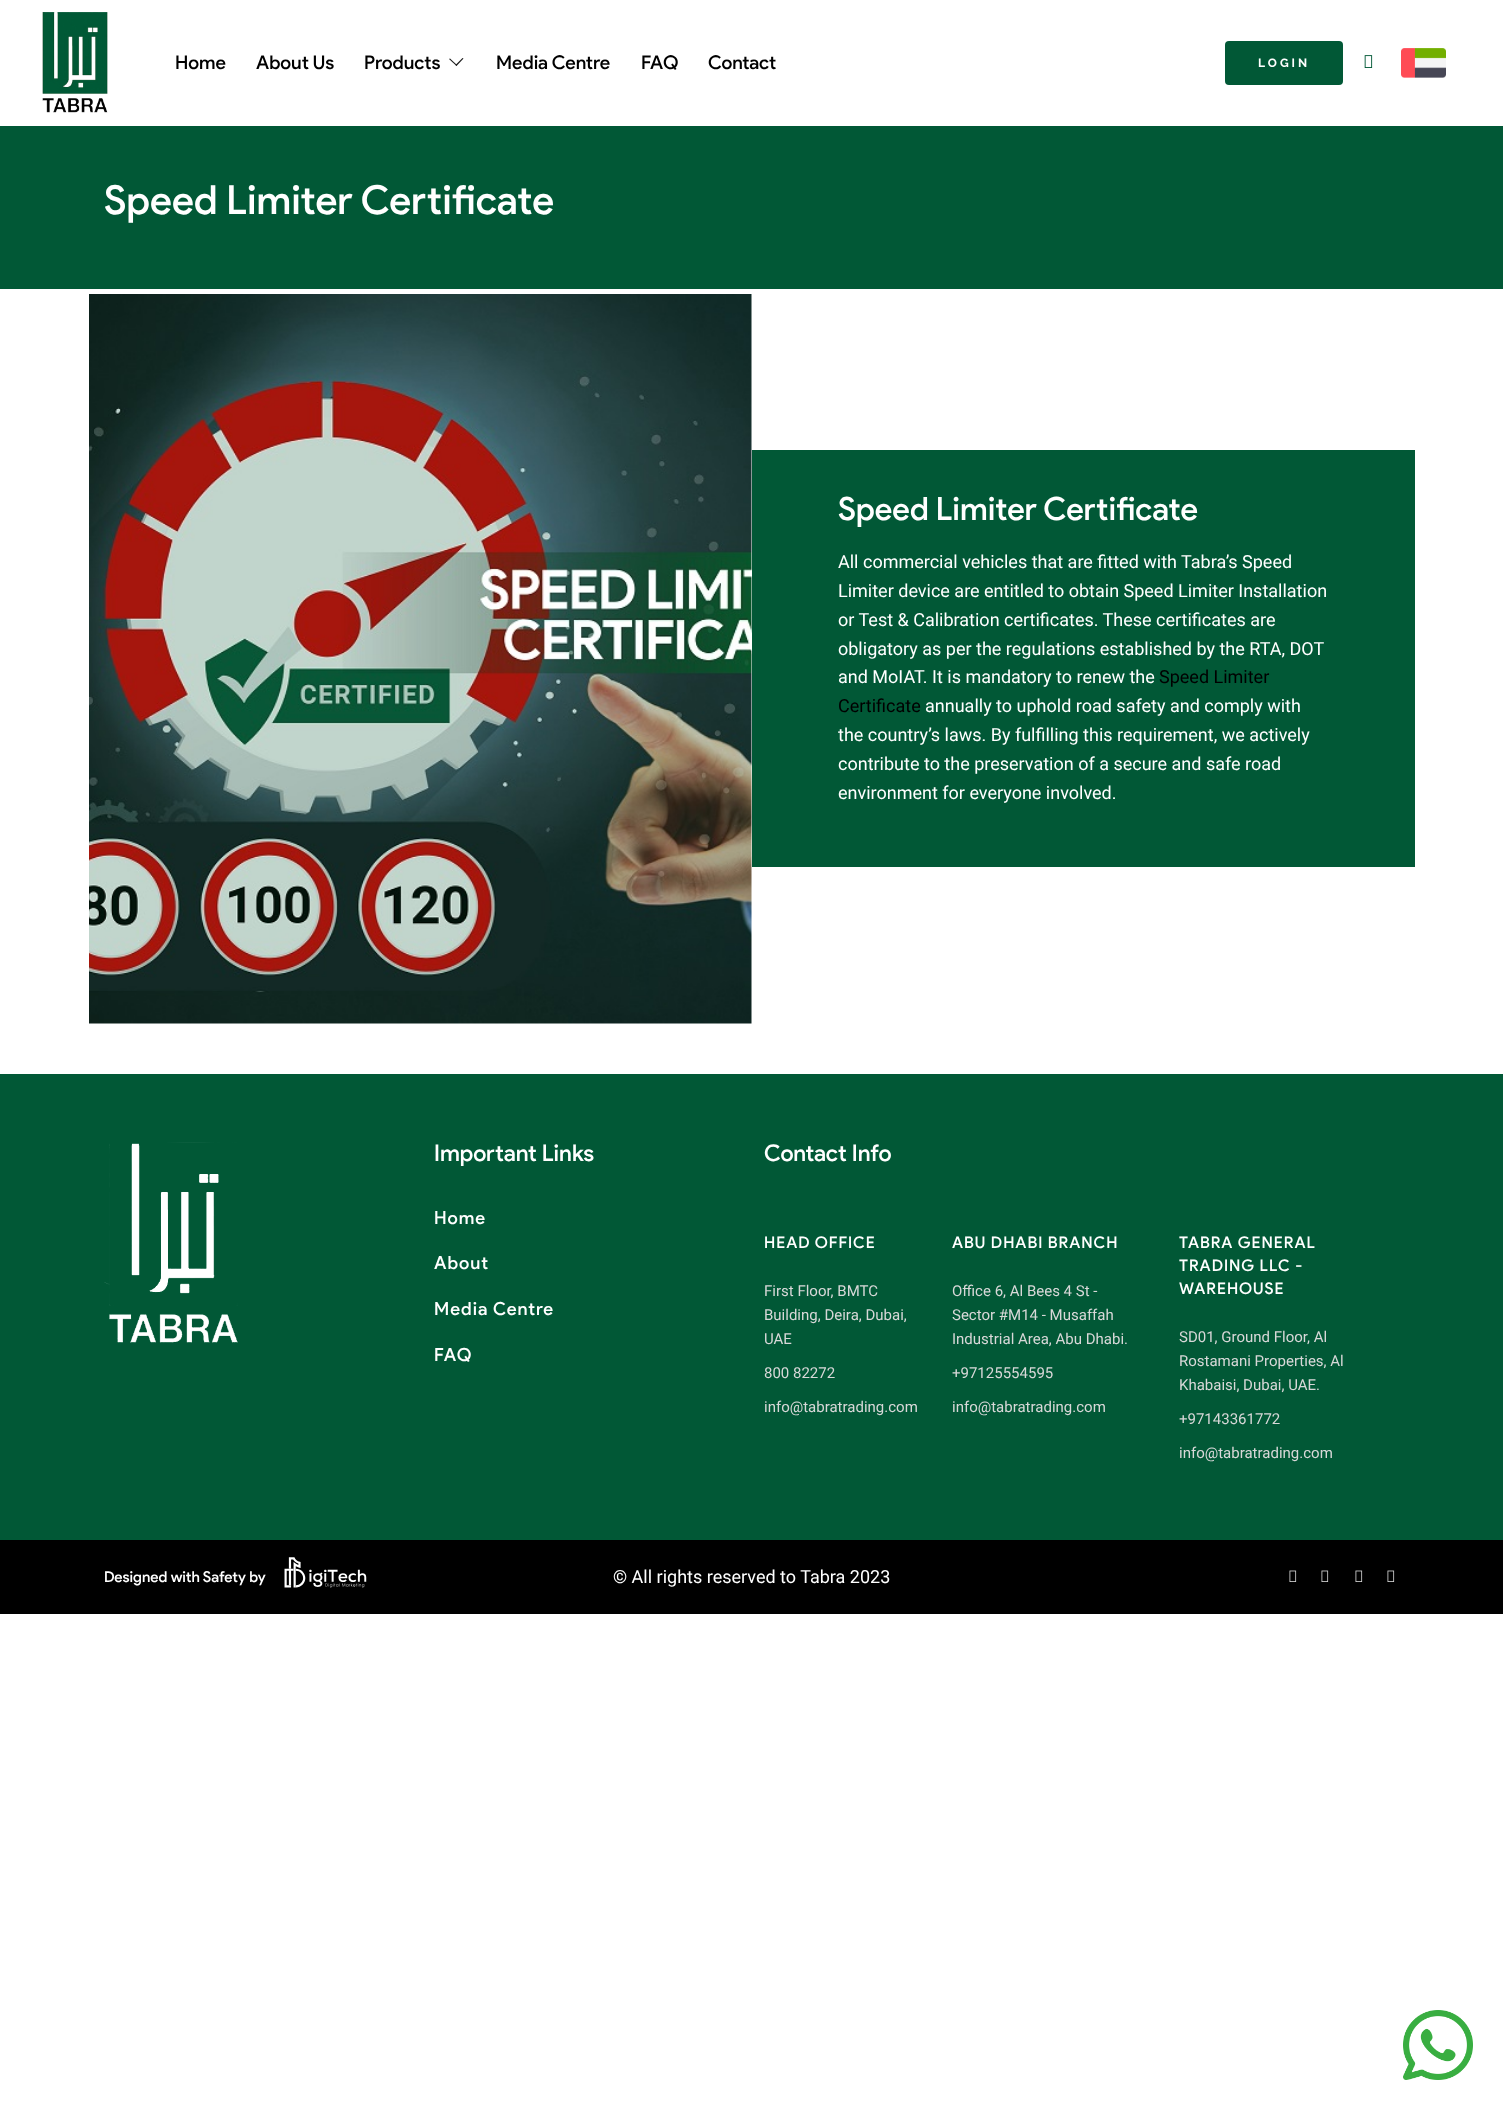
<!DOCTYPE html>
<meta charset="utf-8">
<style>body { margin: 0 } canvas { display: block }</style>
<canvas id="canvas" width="1503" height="2120"></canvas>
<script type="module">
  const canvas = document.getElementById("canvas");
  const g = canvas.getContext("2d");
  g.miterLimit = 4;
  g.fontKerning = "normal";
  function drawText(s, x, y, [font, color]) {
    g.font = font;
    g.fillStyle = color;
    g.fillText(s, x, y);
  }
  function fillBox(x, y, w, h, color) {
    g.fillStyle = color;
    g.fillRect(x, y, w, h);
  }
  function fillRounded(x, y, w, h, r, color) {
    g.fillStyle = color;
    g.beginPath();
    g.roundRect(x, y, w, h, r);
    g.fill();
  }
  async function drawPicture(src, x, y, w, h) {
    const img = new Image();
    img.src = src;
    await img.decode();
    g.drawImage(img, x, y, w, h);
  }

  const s1 = ["500 19px Product Sans", "#000000"];
  const s2 = ["bold 12px Raleway", "#FFFFFF"];
  const s3 = ["500 40px Product Sans", "#FFFFFF"];
  const s4 = ["500 32px Product Sans", "#FFFFFF"];
  const s5 = ["18px Roboto", "#FFFFFF"];
  const s6 = ["18px Roboto", "#000000"];
  const s7 = ["500 23px Product Sans", "#FFFFFF"];
  const s8 = ["500 18px Product Sans", "#FFFFFF"];
  const s9 = ["500 16px Product Sans", "#FFFFFF"];
  const s10 = ["15px Roboto", "#D8D8D8"];
  const s11 = ["500 15px Product Sans", "#FFFFFF"];

  fillBox(0, 0, 1503, 2120, "#FFFFFF");
  await drawPicture("pic1.png", 42, 12, 66, 101);
  drawText("Home", 175, 69, s1);
  drawText("About Us", 256, 69, s1);
  drawText("Products", 364, 69, s1);
  g.fillStyle = "#1C1C1C";
  g.beginPath();
  g.moveTo(463.5, 58.5);
  g.lineTo(456.5, 66);
  g.lineTo(455.5, 65);
  g.lineTo(462.5, 58);
  g.closePath();
  g.fill();
  g.beginPath();
  g.moveTo(457, 65);
  g.lineTo(456.5, 66);
  g.lineTo(449, 59);
  g.lineTo(450, 58.5);
  g.closePath();
  g.fill();
  drawText("Media Centre", 496, 69, s1);
  drawText("FAQ", 641, 69, s1);
  drawText("Contact", 708, 69, s1);
  fillRounded(1225, 41, 118, 44, 4, "#015836");
  g.letterSpacing = "3px";
  drawText("LOGIN", 1258, 67, s2);
  await drawPicture("pic2.png", 1364, 55, 9, 13);
  await drawPicture("pic3.png", 1401, 48, 45, 30);
  fillBox(0, 126, 1503, 163, "#015836");
  g.letterSpacing = "0px";
  drawText("Speed Limiter Certificate", 104, 214, s3);
  await drawPicture("pic4.png", 89, 294, 663, 730);
  fillBox(752, 450, 663, 417, "#015836");
  drawText("Speed Limiter Certificate", 838, 520, s4);
  drawText("All commercial vehicles that are fitted with Tabra’s Speed", 838, 568, s5);
  drawText("Limiter device are entitled to obtain Speed Limiter Installation", 838, 597, s5);
  drawText("or Test & Calibration certificates. These certificates are", 838, 626, s5);
  drawText("obligatory as per the regulations established by the RTA, DOT", 838, 655, s5);
  drawText("and MoIAT. It is mandatory to renew the", 838, 683, s5);
  drawText("Speed Limiter", 1159, 683, s6);
  drawText("Certificate", 838, 712, s6);
  drawText("annually to uphold road safety and comply with", 925, 712, s5);
  drawText("the country’s laws. By fulfilling this requirement, we actively", 838, 741, s5);
  drawText("contribute to the preservation of a secure and safe road", 838, 770, s5);
  drawText("environment for everyone involved.", 838, 799, s5);
  fillBox(0, 1074, 1503, 466, "#015836");
  await drawPicture("pic5.png", 104, 1142, 134, 201);
  drawText("Important Links", 434, 1161, s7);
  g.letterSpacing = "1px";
  drawText("Home", 434, 1224, s8);
  drawText("About", 434, 1269, s8);
  drawText("Media Centre", 434, 1315, s8);
  drawText("FAQ", 434, 1361, s8);
  g.letterSpacing = "0px";
  drawText("Contact Info", 764, 1161, s7);
  g.letterSpacing = "1px";
  drawText("HEAD OFFICE", 764, 1248, s9);
  g.letterSpacing = "0px";
  drawText("First Floor, BMTC", 764, 1296, s10);
  drawText("Building, Deira, Dubai,", 764, 1320, s10);
  drawText("UAE", 764, 1344, s10);
  drawText("800 82272", 764, 1378, s10);
  drawText("info@tabratrading.com", 764, 1412, s10);
  g.letterSpacing = "1px";
  drawText("ABU DHABI BRANCH", 952, 1248, s9);
  g.letterSpacing = "0px";
  drawText("Office 6, Al Bees 4 St -", 952, 1296, s10);
  drawText("Sector #M14 - Musaffah", 952, 1320, s10);
  drawText("Industrial Area, Abu Dhabi.", 952, 1344, s10);
  drawText("+97125554595", 952, 1378, s10);
  drawText("info@tabratrading.com", 952, 1412, s10);
  g.letterSpacing = "1px";
  drawText("TABRA GENERAL", 1179, 1248, s9);
  drawText("TRADING LLC -", 1179, 1271, s9);
  drawText("WAREHOUSE", 1179, 1294, s9);
  g.letterSpacing = "0px";
  drawText("SD01, Ground Floor, Al", 1179, 1342, s10);
  drawText("Rostamani Properties, Al", 1179, 1366, s10);
  drawText("Khabaisi, Dubai, UAE.", 1179, 1390, s10);
  drawText("+97143361772", 1179, 1424, s10);
  drawText("info@tabratrading.com", 1179, 1458, s10);
  fillBox(0, 1540, 1503, 74, "#000000");
  drawText("Designed with Safety by", 104, 1582, s11);
  await drawPicture("pic6.png", 284, 1557, 83, 31);
  drawText("© All rights reserved to Tabra 2023", 613, 1583, s5);
  await drawPicture("pic7.png", 1289, 1570, 8, 12);
  await drawPicture("pic7.png", 1321, 1570, 8, 12);
  await drawPicture("pic7.png", 1355, 1570, 8, 12);
  await drawPicture("pic7.png", 1387, 1570, 8, 12);
  await drawPicture("pic8.png", 1403, 2010, 70, 70);
</script>
